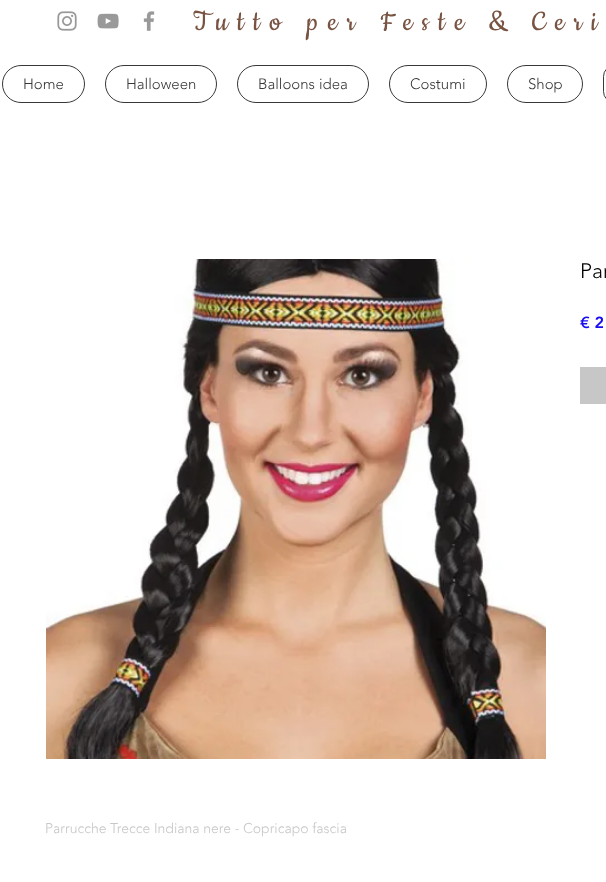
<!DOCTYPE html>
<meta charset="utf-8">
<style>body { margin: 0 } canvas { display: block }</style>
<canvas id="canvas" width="606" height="882"></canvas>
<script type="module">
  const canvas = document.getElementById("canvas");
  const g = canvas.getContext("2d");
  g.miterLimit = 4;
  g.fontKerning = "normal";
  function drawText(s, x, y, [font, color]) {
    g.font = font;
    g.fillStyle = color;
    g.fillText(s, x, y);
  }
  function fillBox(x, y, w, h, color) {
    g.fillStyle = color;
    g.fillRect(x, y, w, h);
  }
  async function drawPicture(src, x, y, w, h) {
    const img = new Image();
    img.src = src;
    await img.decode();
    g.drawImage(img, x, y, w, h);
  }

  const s1 = ["32px Cookie", "#795342"];
  const s2 = ["300 15px 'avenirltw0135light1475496'", "#383838"];
  const s3 = ["300 21px 'avenirltw0135light1475496'", "#000000"];
  const s4 = ["900 16px 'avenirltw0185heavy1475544'", "#170DF2"];
  const s5 = ["300 14px 'avenirltw0135light1475496'", "#C7C7C7"];

  fillBox(0, 0, 606, 882, "#FFFFFF");
  await drawPicture("pic1.png", 57, 11, 20, 20);
  await drawPicture("pic2.png", 97, 13, 22, 16);
  await drawPicture("pic3.png", 143, 11, 12, 20);
  g.letterSpacing = "9.6px";
  drawText("Tutto per Feste & Ceri", 193, 30, s1);
  g.beginPath();
  g.roundRect(2.5, 65.5, 82, 37, 18.5);
  g.strokeStyle = "#383838";
  g.stroke();
  g.letterSpacing = "0px";
  drawText("Home", 23, 89, s2);
  g.beginPath();
  g.roundRect(105.5, 65.5, 111, 37, 18.5);
  g.stroke();
  drawText("Halloween", 126, 89, s2);
  g.beginPath();
  g.roundRect(237.5, 65.5, 131, 37, 18.5);
  g.stroke();
  drawText("Balloons idea", 258, 89, s2);
  g.beginPath();
  g.roundRect(389.5, 65.5, 97, 37, 18.5);
  g.stroke();
  drawText("Costumi", 410, 89, s2);
  g.beginPath();
  g.roundRect(507.5, 65.5, 75, 37, 18.5);
  g.stroke();
  drawText("Shop", 528, 89, s2);
  g.beginPath();
  g.roundRect(603.5, 65.5, 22, 37, 18.5);
  g.stroke();
  drawText("Par", 580, 278, s3);
  drawText("€ 2", 580, 328, s4);
  fillBox(580, 367, 26, 37, "#C7C7C7");
  await drawPicture("pic4.png", 46, 259, 500, 500);
  drawText("Parrucche Trecce Indiana nere - Copricapo fascia", 45, 833, s5);
</script>
